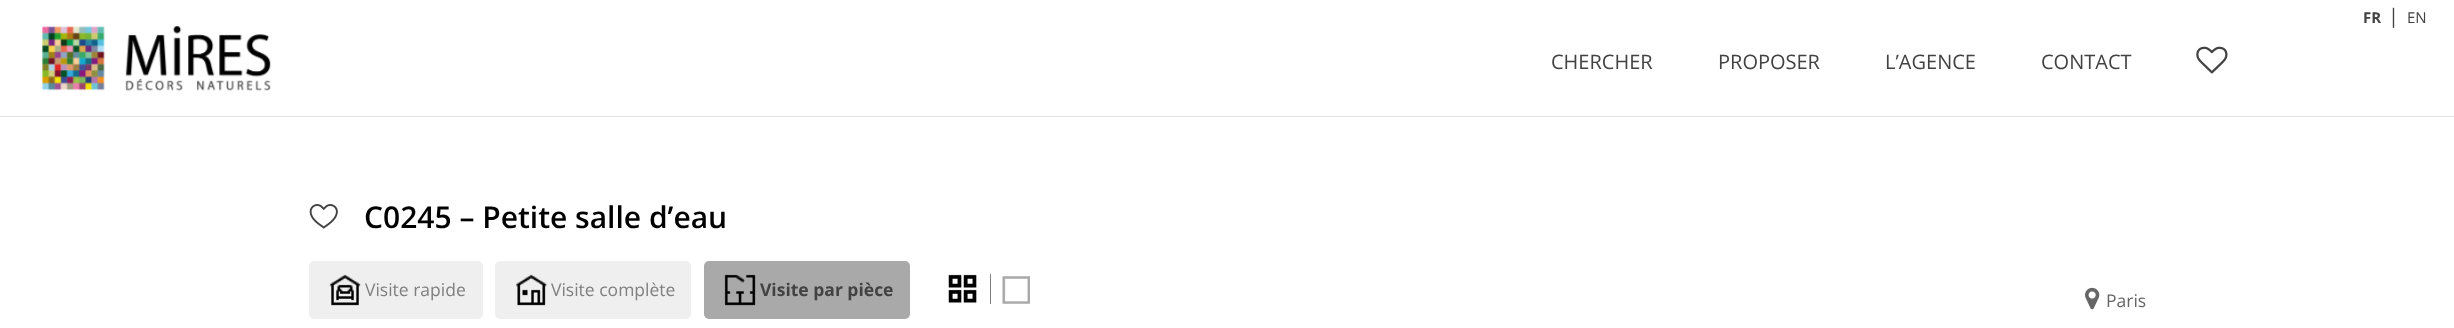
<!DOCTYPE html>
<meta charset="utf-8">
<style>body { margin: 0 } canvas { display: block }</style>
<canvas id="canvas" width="2454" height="328"></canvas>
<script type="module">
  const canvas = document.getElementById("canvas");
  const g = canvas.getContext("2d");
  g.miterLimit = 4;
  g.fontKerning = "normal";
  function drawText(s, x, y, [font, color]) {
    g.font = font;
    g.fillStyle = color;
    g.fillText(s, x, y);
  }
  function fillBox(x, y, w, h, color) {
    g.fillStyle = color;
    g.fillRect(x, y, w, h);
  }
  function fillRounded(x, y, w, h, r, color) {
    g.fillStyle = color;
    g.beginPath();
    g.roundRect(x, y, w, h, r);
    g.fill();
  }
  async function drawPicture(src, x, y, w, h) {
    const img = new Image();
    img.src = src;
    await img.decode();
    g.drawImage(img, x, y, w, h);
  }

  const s1 = ["bold 15px Open Sans", "#424242"];
  const s2 = ["20px Open Sans", "#424242"];
  const s3 = ["15px Open Sans", "#424242"];
  const s4 = ["600 30px Open Sans", "#000000"];
  const s5 = ["17.5px Open Sans", "#808080"];
  const s6 = ["bold 17.5px Open Sans", "#424242"];
  const s7 = ["17.5px Open Sans", "#666666"];

  fillBox(0, 0, 2454, 328, "#FFFFFF");
  fillBox(0, 116, 2454, 1, "#E3E3E3");
  await drawPicture("pic1.png", 42, 26, 229, 65);
  drawText("FR", 2363, 23, s1);
  drawText("|", 2388, 23, s2);
  drawText("EN", 2407, 23, s3);
  drawText("CHERCHER", 1551, 69, s2);
  drawText("PROPOSER", 1718, 69, s2);
  drawText("L’AGENCE", 1885, 69, s2);
  drawText("CONTACT", 2041, 69, s2);
  await drawPicture("pic2.png", 2196, 46, 32, 28);
  await drawPicture("pic3.png", 309, 204, 29, 25);
  drawText("C0245 – Petite salle d’eau", 364, 228, s4);
  fillRounded(309, 261, 174, 58, 5, "#EFEFEF");
  await drawPicture("pic4.png", 329, 274, 32, 32);
  drawText("Visite rapide", 365, 296, s5);
  fillRounded(495, 261, 196, 58, 5, "#EFEFEF");
  await drawPicture("pic5.png", 516, 274, 31, 32);
  drawText("Visite complète", 551, 296, s5);
  fillRounded(704, 261, 206, 58, 5, "#A9A9A9");
  await drawPicture("pic6.png", 724, 274, 32, 32);
  drawText("Visite par pièce", 760, 296, s6);
  await drawPicture("pic7.png", 948, 274, 29, 29);
  fillBox(990, 274, 1, 30, "#808080");
  await drawPicture("pic8.png", 1002, 276, 28, 28);
  await drawPicture("pic9.png", 2085, 287, 15, 23);
  drawText("Paris", 2106, 307, s7);
</script>
